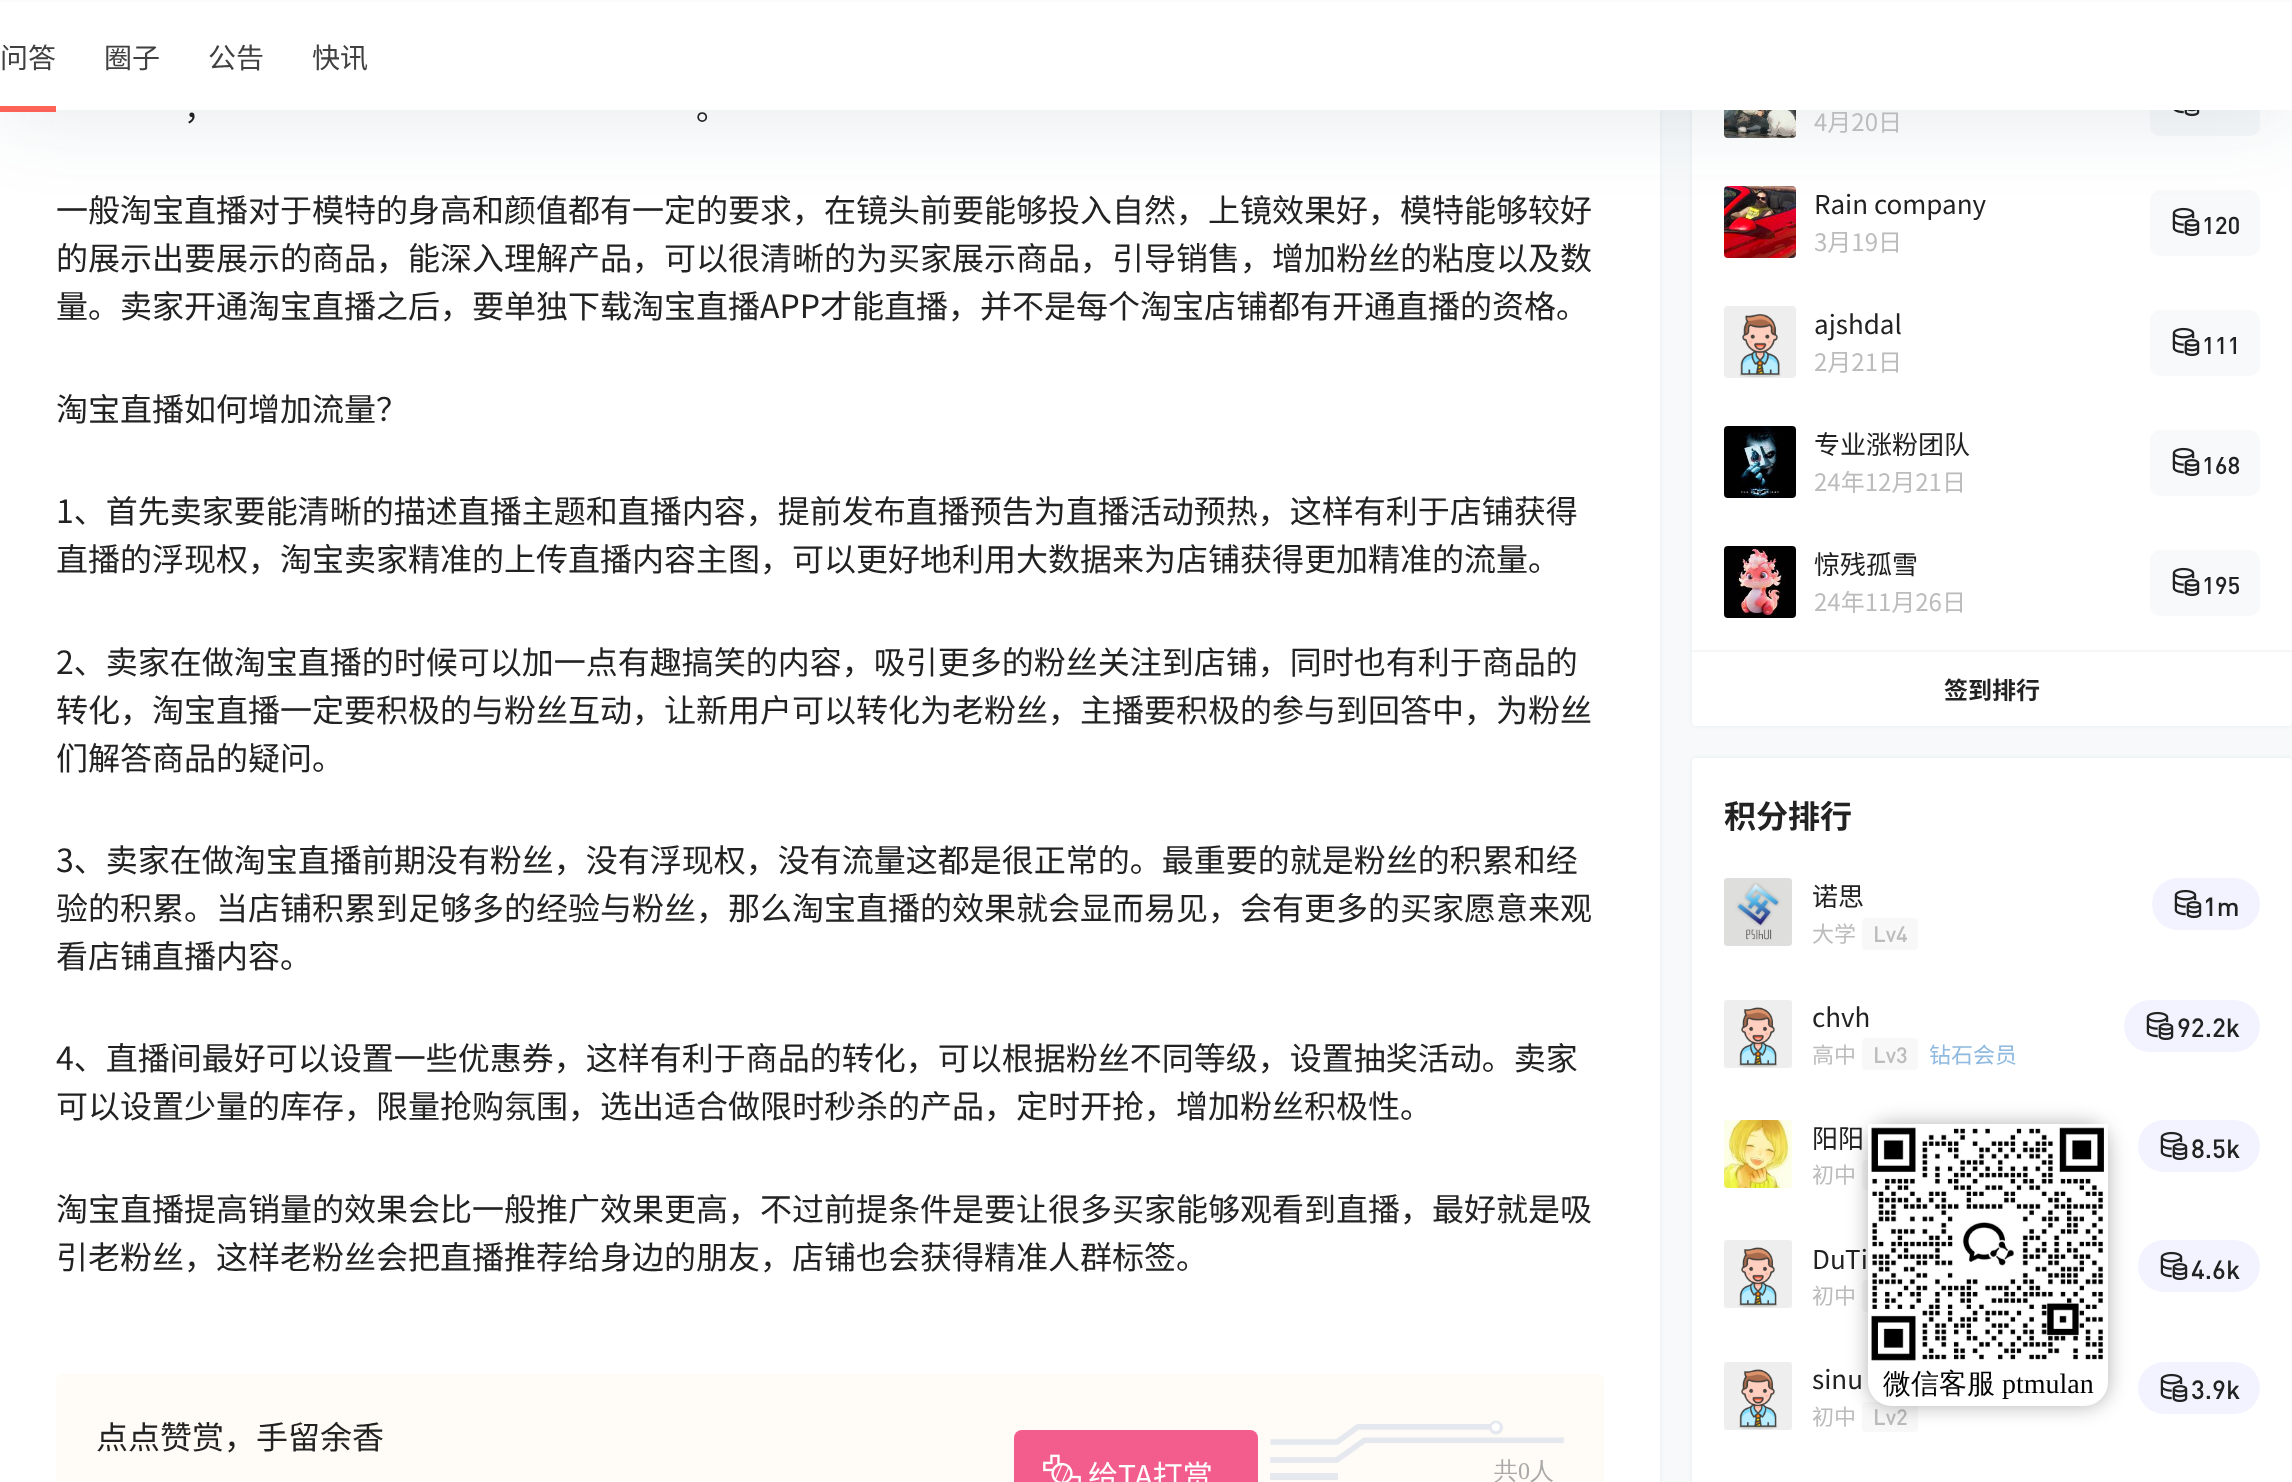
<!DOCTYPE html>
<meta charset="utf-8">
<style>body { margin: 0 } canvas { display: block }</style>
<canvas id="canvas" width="2292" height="1482"></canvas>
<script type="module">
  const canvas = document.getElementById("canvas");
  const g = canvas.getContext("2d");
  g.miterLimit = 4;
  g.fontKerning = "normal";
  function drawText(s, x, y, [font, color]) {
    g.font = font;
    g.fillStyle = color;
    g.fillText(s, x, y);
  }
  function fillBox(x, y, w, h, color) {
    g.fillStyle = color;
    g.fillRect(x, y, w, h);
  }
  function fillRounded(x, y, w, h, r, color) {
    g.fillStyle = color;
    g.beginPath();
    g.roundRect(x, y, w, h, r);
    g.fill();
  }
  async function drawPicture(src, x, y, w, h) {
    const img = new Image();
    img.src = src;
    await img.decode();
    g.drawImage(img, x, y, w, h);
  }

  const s1 = ["28px Noto Sans CJK SC", "#414141"];
  const s2 = ["32px Noto Sans CJK SC", "#222222"];
  const s3 = ["30px Noto Sans CJK SC", "#FFFFFF"];
  const s4 = ["500 24px WenQuanYi Zen Hei", "#AAAAAA"];
  const s5 = ["24px Liberation Serif", "#AAAAAA"];
  const s6 = ["24px Noto Sans CJK SC", "#BCBCBC"];
  const s7 = ["26px Noto Sans CJK SC", "#222222"];
  const s8 = ["500 24px DIN", "#222222"];
  const s9 = ["bold 24px Noto Sans CJK SC", "#222222"];
  const s10 = ["bold 32px Noto Sans CJK SC", "#222222"];
  const s11 = ["22px Noto Sans CJK SC", "#BCBCBC"];
  const s12 = ["500 22px DIN", "#BCBCBC"];
  const s13 = ["500 26px DIN", "#222222"];
  const s14 = ["22px Noto Sans CJK SC", "#8FB9DF"];
  const s15 = ["500 28px WenQuanYi Zen Hei", "#030303"];
  const s16 = ["28px Liberation Serif", "#030303"];

  fillBox(0, 0, 2292, 1482, "#F7F9FA");
  g.fillStyle = "rgba(98, 124, 153, 0.1)";
  g.filter = "blur(2px)";
  g.beginPath();
  g.roundRect(0, -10, 1660, 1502, 4);
  g.fill();
  g.filter = "none";
  fillBox(0, 110, 1660, 1372, "#FFFFFF");
  g.fillStyle = "rgba(98, 124, 153, 0.1)";
  g.filter = "blur(2px)";
  g.beginPath();
  g.roundRect(1692, -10, 600, 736, 4);
  g.fill();
  g.filter = "none";
  fillRounded(1692, -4, 600, 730, 4, "#FFFFFF");
  await drawPicture("pic3.png", 1724, 110, 72, 28);
  fillRounded(2150, 70, 110, 66, 10, "#F7F9FA");
  await drawPicture("pic4.png", 2173, 110, 27, 7);
  await drawPicture("pic5.png", 1724, 186, 72, 72);
  fillRounded(2150, 190, 110, 66, 10, "#F7F9FA");
  await drawPicture("pic6.png", 2172, 207, 28, 30);
  g.fillStyle = "rgba(17, 58, 93, 0.1)";
  g.filter = "blur(40px)";
  g.beginPath();
  g.rect(0, -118, 2292, 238);
  g.fill();
  g.filter = "none";
  fillBox(0, 2, 2292, 108, "#FFFFFF");
  fillBox(0, 0, 2292, 2, "#FCFCFC");
  drawText("问答", 0, 68, s1);
  fillBox(0, 106, 56, 6, "rgba(252, 60, 45, 0.8)");
  drawText("圈子", 104, 68, s1);
  drawText("公告", 208, 68, s1);
  drawText("快讯", 312, 68, s1);
  drawText("，", 184, 120, s2);
  drawText("。", 696, 120, s2);
  drawText("一般淘宝直播对于模特的身高和颜值都有一定的要求，在镜头前要能够投入自然，上镜效果好，模特能够较好", 56, 222, s2);
  drawText("的展示出要展示的商品，能深入理解产品，可以很清晰的为买家展示商品，引导销售，增加粉丝的粘度以及数", 56, 270, s2);
  drawText("量。卖家开通淘宝直播之后，要单独下载淘宝直播APP才能直播，并不是每个淘宝店铺都有开通直播的资格。", 56, 318, s2);
  drawText("淘宝直播如何增加流量？", 56, 421, s2);
  drawText("1、首先卖家要能清晰的描述直播主题和直播内容，提前发布直播预告为直播活动预热，这样有利于店铺获得", 56, 523, s2);
  drawText("直播的浮现权，淘宝卖家精准的上传直播内容主图，可以更好地利用大数据来为店铺获得更加精准的流量。", 56, 571, s2);
  drawText("2、卖家在做淘宝直播的时候可以加一点有趣搞笑的内容，吸引更多的粉丝关注到店铺，同时也有利于商品的", 56, 674, s2);
  drawText("转化，淘宝直播一定要积极的与粉丝互动，让新用户可以转化为老粉丝，主播要积极的参与到回答中，为粉丝", 56, 722, s2);
  drawText("们解答商品的疑问。", 56, 770, s2);
  drawText("3、卖家在做淘宝直播前期没有粉丝，没有浮现权，没有流量这都是很正常的。最重要的就是粉丝的积累和经", 56, 872, s2);
  drawText("验的积累。当店铺积累到足够多的经验与粉丝，那么淘宝直播的效果就会显而易见，会有更多的买家愿意来观", 56, 920, s2);
  drawText("看店铺直播内容。", 56, 968, s2);
  drawText("4、直播间最好可以设置一些优惠券，这样有利于商品的转化，可以根据粉丝不同等级，设置抽奖活动。卖家", 56, 1070, s2);
  drawText("可以设置少量的库存，限量抢购氛围，选出适合做限时秒杀的产品，定时开抢，增加粉丝积极性。", 56, 1118, s2);
  drawText("淘宝直播提高销量的效果会比一般推广效果更高，不过前提条件是要让很多买家能够观看到直播，最好就是吸", 56, 1221, s2);
  drawText("引老粉丝，这样老粉丝会把直播推荐给身边的朋友，店铺也会获得精准人群标签。", 56, 1269, s2);
  fillRounded(56, 1374, 1548, 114, 6, "#FFFCF7");
  drawText("点点赞赏，手留余香", 96, 1449, s2);
  fillRounded(1014, 1430, 244, 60, 8, "#F25D8E");
  await drawPicture("pic1.png", 1043, 1454, 38, 28);
  drawText("给TA打赏", 1088, 1487, s3);
  await drawPicture("pic2.png", 1270, 1420, 294, 60);
  drawText("共", 1494, 1479, s4);
  drawText("0", 1518, 1479, s5);
  drawText("人", 1530, 1479, s4);
  drawText("4月20日", 1814, 131, s6);
  drawText("Rain company", 1814, 214, s7);
  drawText("3月19日", 1814, 251, s6);
  drawText("120", 2202, 234, s8);
  await drawPicture("pic7.png", 1724, 306, 72, 72);
  drawText("ajshdal", 1814, 334, s7);
  drawText("2月21日", 1814, 371, s6);
  fillRounded(2150, 310, 110, 66, 10, "#F7F9FA");
  await drawPicture("pic6.png", 2172, 327, 28, 30);
  drawText("111", 2202, 354, s8);
  await drawPicture("pic8.png", 1724, 426, 72, 72);
  drawText("专业涨粉团队", 1814, 454, s7);
  drawText("24年12月21日", 1814, 491, s6);
  fillRounded(2150, 430, 110, 66, 10, "#F7F9FA");
  await drawPicture("pic6.png", 2172, 447, 28, 30);
  drawText("168", 2202, 474, s8);
  await drawPicture("pic9.png", 1724, 546, 72, 72);
  drawText("惊残孤雪", 1814, 574, s7);
  drawText("24年11月26日", 1814, 611, s6);
  fillRounded(2150, 550, 110, 66, 10, "#F7F9FA");
  await drawPicture("pic6.png", 2172, 567, 28, 30);
  drawText("195", 2202, 594, s8);
  fillBox(1692, 650, 600, 2, "#F5F6F7");
  drawText("签到排行", 1944, 699, s9);
  g.fillStyle = "rgba(98, 124, 153, 0.1)";
  g.filter = "blur(2px)";
  g.beginPath();
  g.roundRect(1692, 758, 600, 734, 4);
  g.fill();
  g.filter = "none";
  fillRounded(1692, 758, 600, 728, 4, "#FFFFFF");
  drawText("积分排行", 1724, 828, s10);
  fillBox(1724, 878, 68, 68, "#F9F9F9");
  await drawPicture("pic10.png", 1724, 878, 68, 68);
  drawText("诺思", 1812, 906, s7);
  drawText("大学", 1812, 942, s11);
  fillRounded(1862, 918, 56, 32, 4, "#F8F8F8");
  drawText("Lv4", 1873, 942, s12);
  fillRounded(2152, 878, 108, 52, 26, "#F2F3FF");
  await drawPicture("pic11.png", 2174, 889, 28, 30);
  drawText("1m", 2203, 916, s13);
  fillBox(1724, 1000, 68, 68, "#F9F9F9");
  fillRounded(1724, 1000, 68, 68, 4, "#EEEEEE");
  await drawPicture("pic12.png", 1738, 1007, 40, 61);
  drawText("chvh", 1812, 1027, s7);
  drawText("高中", 1812, 1063, s11);
  fillRounded(1862, 1038, 56, 32, 4, "#F8F8F8");
  drawText("Lv3", 1873, 1063, s12);
  drawText("钻石会员", 1929, 1063, s14);
  fillRounded(2124, 1000, 136, 52, 26, "#F2F3FF");
  await drawPicture("pic11.png", 2146, 1011, 28, 30);
  drawText("92.2k", 2177, 1037, s13);
  fillBox(1724, 1120, 68, 68, "#F9F9F9");
  await drawPicture("pic13.png", 1724, 1120, 68, 68);
  drawText("阳阳", 1812, 1148, s7);
  drawText("初中", 1812, 1183, s11);
  fillRounded(1862, 1160, 56, 30, 4, "#F8F8F8");
  fillRounded(2138, 1120, 122, 52, 26, "#F2F3FF");
  await drawPicture("pic11.png", 2160, 1131, 28, 30);
  drawText("8.5k", 2191, 1158, s13);
  fillBox(1724, 1240, 68, 68, "#F9F9F9");
  fillRounded(1724, 1240, 68, 68, 4, "#EEEEEE");
  await drawPicture("pic12.png", 1738, 1247, 40, 61);
  drawText("DuTi", 1812, 1269, s7);
  drawText("初中", 1812, 1304, s11);
  fillRounded(1862, 1280, 56, 32, 4, "#F8F8F8");
  fillRounded(2138, 1240, 122, 52, 26, "#F2F3FF");
  await drawPicture("pic11.png", 2160, 1251, 28, 30);
  drawText("4.6k", 2191, 1279, s13);
  fillBox(1724, 1362, 68, 68, "#F9F9F9");
  fillRounded(1724, 1362, 68, 68, 4, "#EEEEEE");
  await drawPicture("pic12.png", 1738, 1369, 40, 61);
  drawText("sinu", 1812, 1389, s7);
  drawText("初中", 1812, 1425, s11);
  fillRounded(1862, 1402, 56, 30, 4, "#F8F8F8");
  drawText("Lv2", 1873, 1425, s12);
  fillRounded(2138, 1362, 122, 52, 26, "#F2F3FF");
  await drawPicture("pic11.png", 2160, 1373, 28, 30);
  drawText("3.9k", 2191, 1399, s13);
  g.fillStyle = "rgba(0, 0, 0, 0.3)";
  g.filter = "blur(10px)";
  g.beginPath();
  g.roundRect(1868, 1124, 240, 282, 24);
  g.fill();
  g.filter = "none";
  fillRounded(1868, 1124, 240, 282, 24, "#FFFFFF");
  await drawPicture("pic14.png", 1868, 1124, 240, 237);
  drawText("微信客服", 1883, 1393, s15);
  drawText("ptmulan", 2002, 1393, s16);
</script>
